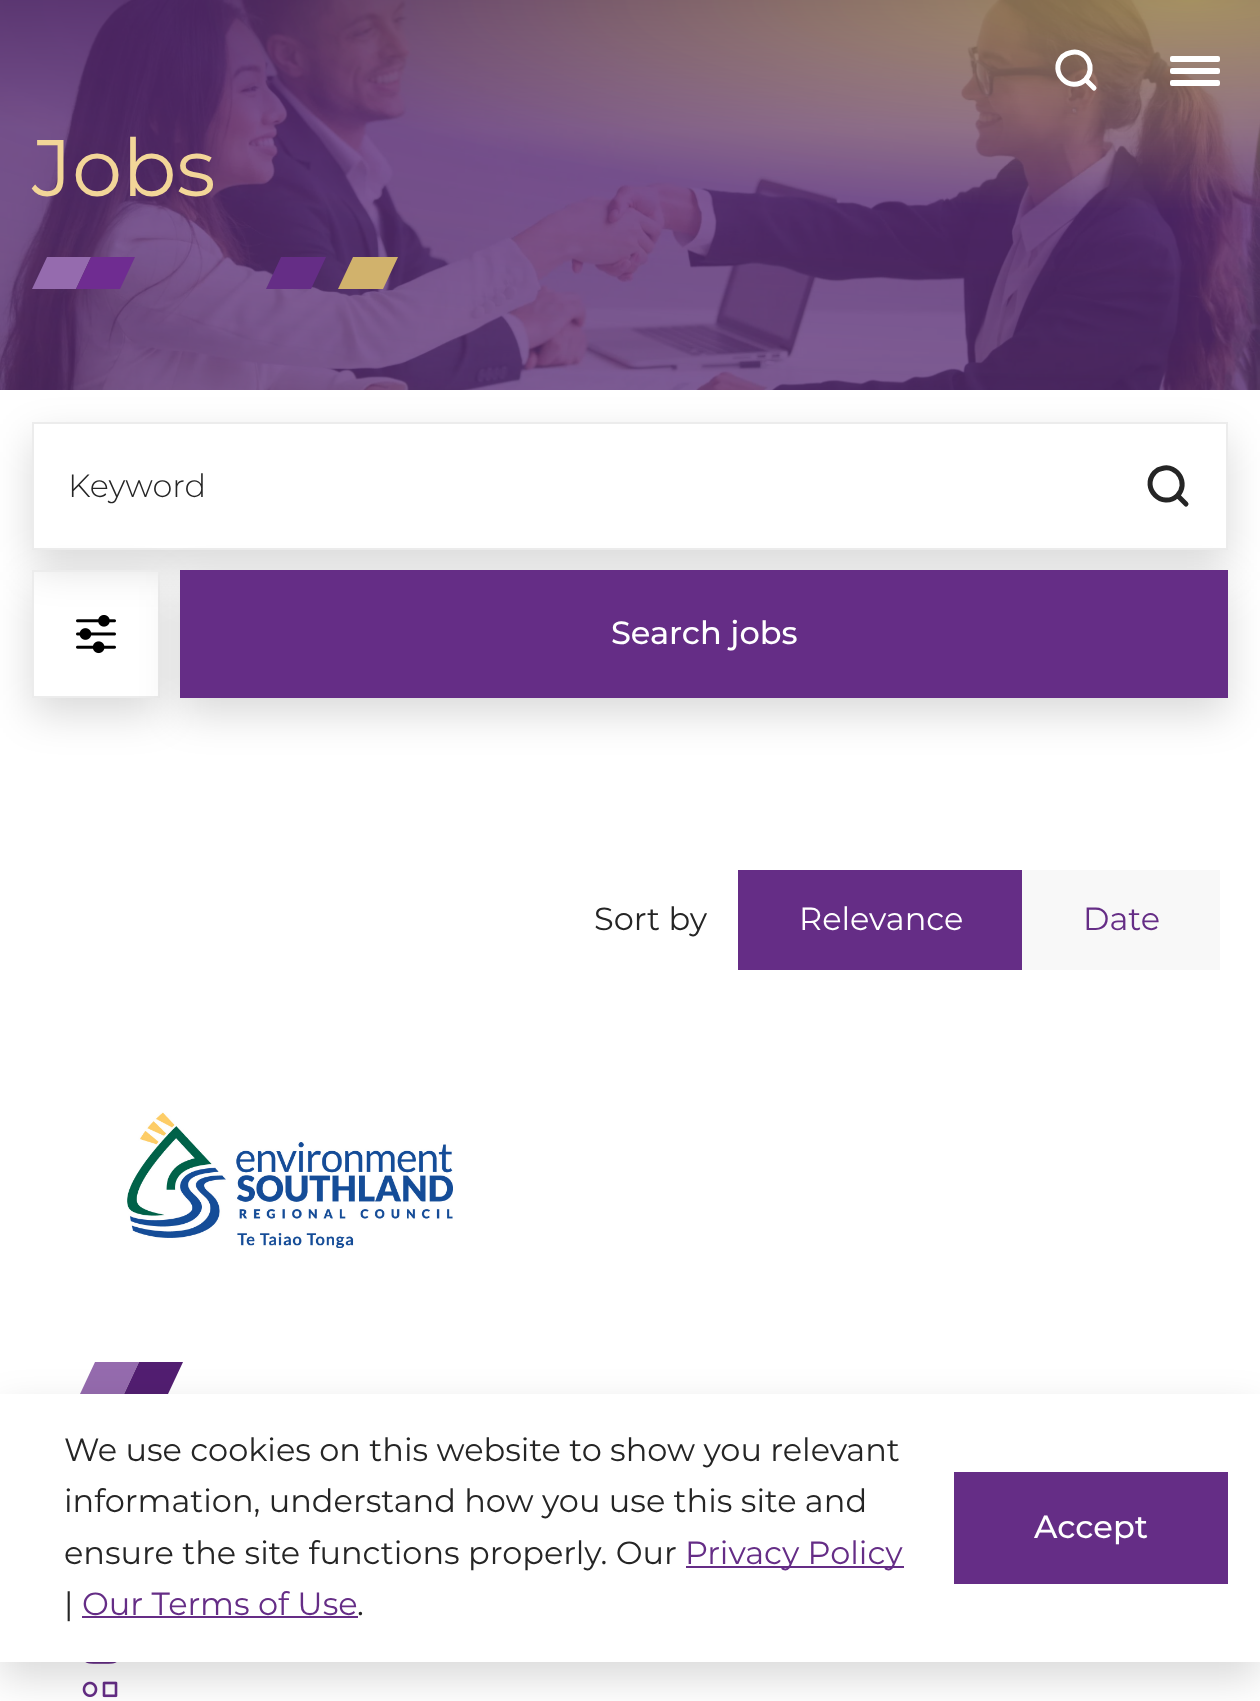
<!DOCTYPE html>
<meta charset="utf-8">
<style>body { margin: 0 } canvas { display: block }</style>
<canvas id="canvas" width="1260" height="1701"></canvas>
<script type="module">
  const canvas = document.getElementById("canvas");
  const g = canvas.getContext("2d");
  g.miterLimit = 4;
  g.fontKerning = "normal";
  function drawText(s, x, y, [font, color]) {
    g.font = font;
    g.fillStyle = color;
    g.fillText(s, x, y);
  }
  function fillBox(x, y, w, h, color) {
    g.fillStyle = color;
    g.fillRect(x, y, w, h);
  }
  function fillRounded(x, y, w, h, r, color) {
    g.fillStyle = color;
    g.beginPath();
    g.roundRect(x, y, w, h, r);
    g.fill();
  }
  async function drawPicture(src, x, y, w, h) {
    const img = new Image();
    img.src = src;
    await img.decode();
    g.drawImage(img, x, y, w, h);
  }

  const s1 = ["80px Montserrat", "#F2D698"];
  const s2 = ["300 32px Montserrat", "#252525"];
  const s3 = ["500 32px Montserrat", "#FFFFFF"];
  const s4 = ["32px Montserrat", "#252525"];
  const s5 = ["32px Montserrat", "#FFFFFF"];
  const s6 = ["32px Montserrat", "#652D86"];

  fillBox(0, 0, 1260, 1701, "#FFFFFF");
  await drawPicture("pic1.png", 0, 0, 1260, 390);
  g.beginPath();
  g.moveTo(1094, 88);
  g.lineTo(1085.5, 79.5);
  g.moveTo(1085.5, 79.5);
  g.bezierCurveTo(1096.5, 68, 1086.5, 49, 1071, 52.5);
  g.bezierCurveTo(1068, 53, 1065, 54.5, 1062.5, 56.5);
  g.bezierCurveTo(1048, 72.5, 1070.5, 94, 1085.5, 79.5);
  g.closePath();
  g.strokeStyle = "#FFFFFF";
  g.lineWidth = 5;
  g.lineCap = "round";
  g.lineJoin = "round";
  g.stroke();
  fillRounded(1170, 68, 50, 6, 2, "#FFFFFF");
  fillRounded(1170, 56, 50, 6, 2, "#FFFFFF");
  fillRounded(1170, 80, 50, 6, 2, "#FFFFFF");
  drawText("Jobs", 32, 196, s1);
  g.fillStyle = "#652D86";
  g.beginPath();
  g.moveTo(266, 289);
  g.lineTo(311, 289);
  g.lineTo(326, 257);
  g.lineTo(281, 257);
  g.closePath();
  g.fill();
  g.fillStyle = "#956BAE";
  g.beginPath();
  g.moveTo(32, 289);
  g.lineTo(76, 289);
  g.lineTo(91, 257);
  g.lineTo(47, 257);
  g.closePath();
  g.fill();
  g.fillStyle = "#D1B26C";
  g.beginPath();
  g.moveTo(338, 289);
  g.lineTo(383, 289);
  g.lineTo(398, 257);
  g.lineTo(353, 257);
  g.closePath();
  g.fill();
  g.fillStyle = "#6F2C91";
  g.beginPath();
  g.moveTo(76, 289);
  g.lineTo(120, 289);
  g.lineTo(135, 257);
  g.lineTo(91, 257);
  g.closePath();
  g.fill();
  g.save();
  g.beginPath();
  g.moveTo(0, 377);
  g.lineTo(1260, 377);
  g.lineTo(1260, 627);
  g.lineTo(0, 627);
  g.closePath();
  g.moveTo(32, 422);
  g.lineTo(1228, 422);
  g.lineTo(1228, 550);
  g.lineTo(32, 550);
  g.closePath();
  g.clip("evenodd");
  g.fillStyle = "rgba(0, 0, 0, 0.15)";
  g.filter = "blur(20px)";
  g.beginPath();
  g.rect(32, 438, 1196, 128);
  g.fill();
  g.filter = "none";
  g.restore();
  g.beginPath();
  g.moveTo(1186, 504);
  g.lineTo(1177.5, 495.5);
  g.moveTo(1177.5, 495.5);
  g.bezierCurveTo(1189, 484, 1177.5, 464, 1162, 468.5);
  g.bezierCurveTo(1159, 469, 1156.5, 470.5, 1154.5, 472.5);
  g.bezierCurveTo(1140.5, 488.5, 1162.5, 509.5, 1177.5, 495.5);
  g.closePath();
  g.strokeStyle = "#252525";
  g.stroke();
  g.strokeStyle = "#ECECEC";
  g.lineWidth = 2;
  g.lineJoin = "miter";
  g.strokeRect(33, 423, 1194, 126);
  drawText("Keyword", 68, 497, s2);
  g.save();
  g.beginPath();
  g.moveTo(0, 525);
  g.lineTo(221, 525);
  g.lineTo(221, 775);
  g.lineTo(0, 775);
  g.closePath();
  g.moveTo(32, 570);
  g.lineTo(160, 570);
  g.lineTo(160, 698);
  g.lineTo(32, 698);
  g.closePath();
  g.clip("evenodd");
  g.fillStyle = "rgba(0, 0, 0, 0.15)";
  g.filter = "blur(20px)";
  g.beginPath();
  g.rect(32, 586, 128, 128);
  g.fill();
  g.filter = "none";
  g.restore();
  g.strokeRect(33, 571, 126, 126);
  await drawPicture("pic2.png", 76, 615, 40, 39);
  g.fillStyle = "rgba(0, 0, 0, 0.15)";
  g.filter = "blur(20px)";
  g.beginPath();
  g.rect(180, 586, 1048, 128);
  g.fill();
  g.filter = "none";
  fillBox(180, 570, 1048, 128, "#652D86");
  drawText("Search jobs", 611, 644, s3);
  drawText("Sort by", 594, 930, s4);
  fillBox(738, 870, 284, 100, "#652D86");
  drawText("Relevance", 799, 930, s5);
  fillBox(1022, 870, 198, 100, "#F8F8F8");
  drawText("Date", 1083, 930, s6);
  await drawPicture("pic3.png", 127, 1112, 326, 136);
  g.fillStyle = "#956BAE";
  g.beginPath();
  g.moveTo(80, 1394);
  g.lineTo(124, 1394);
  g.lineTo(139, 1362);
  g.lineTo(95, 1362);
  g.closePath();
  g.fill();
  g.fillStyle = "#521E71";
  g.beginPath();
  g.moveTo(124, 1394);
  g.lineTo(168, 1394);
  g.lineTo(183, 1362);
  g.lineTo(139, 1362);
  g.closePath();
  g.fill();
  await drawPicture("pic4.png", 85, 1662, 32, 2);
  await drawPicture("pic5.png", 82, 1681, 36, 17);
  g.fillStyle = "rgba(0, 0, 0, 0.15)";
  g.filter = "blur(20px)";
  g.beginPath();
  g.rect(0, 1410, 1260, 268);
  g.fill();
  g.filter = "none";
  fillBox(0, 1394, 1260, 268, "#FFFFFF");
  drawText("We use cookies on this website to show you relevant", 64, 1461, s4);
  drawText("information, understand how you use this site and", 64, 1512, s4);
  drawText("ensure the site functions properly. Our", 64, 1564, s4);
  fillBox(686, 1566, 218, 2, "#652D86");
  drawText("Privacy Policy", 685, 1564, s6);
  drawText("|", 64, 1615, s4);
  drawText("Our Terms of Use", 82, 1615, s6);
  fillBox(82, 1616, 276, 2, "#652D86");
  drawText(".", 357, 1615, s4);
  fillBox(954, 1472, 274, 112, "#652D86");
  drawText("Accept", 1034, 1538, s3);
</script>
